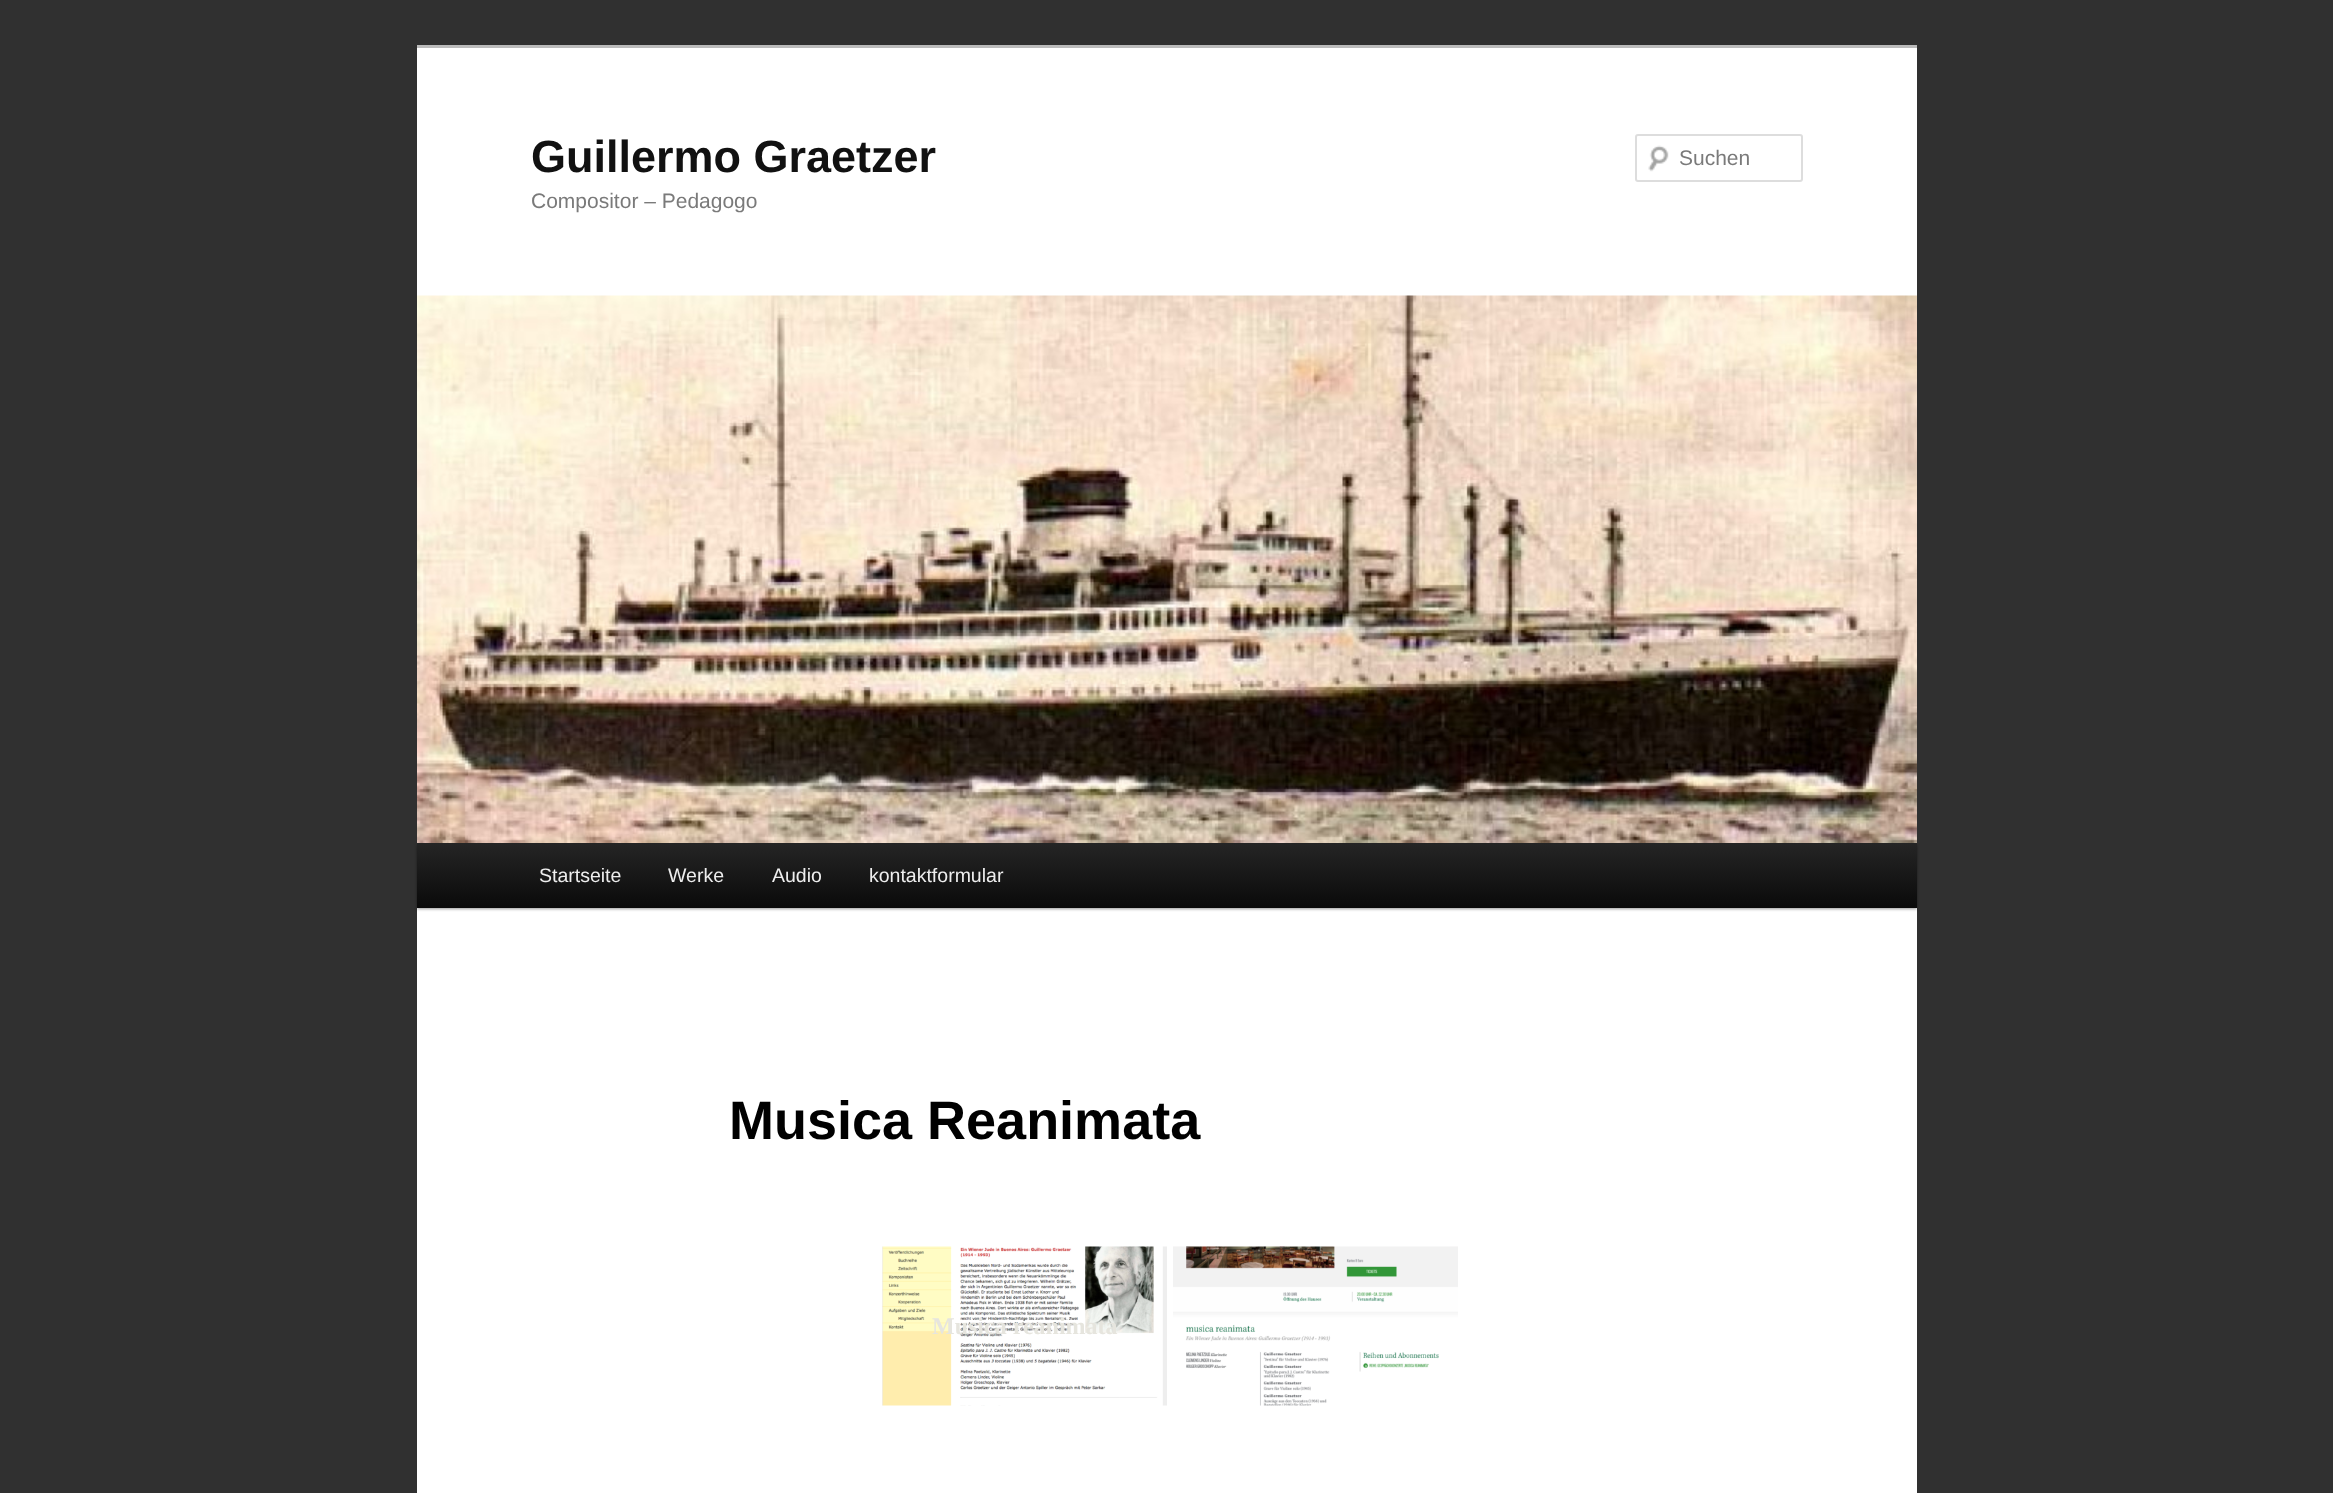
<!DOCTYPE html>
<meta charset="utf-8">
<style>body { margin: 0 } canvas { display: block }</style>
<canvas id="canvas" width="2333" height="1493"></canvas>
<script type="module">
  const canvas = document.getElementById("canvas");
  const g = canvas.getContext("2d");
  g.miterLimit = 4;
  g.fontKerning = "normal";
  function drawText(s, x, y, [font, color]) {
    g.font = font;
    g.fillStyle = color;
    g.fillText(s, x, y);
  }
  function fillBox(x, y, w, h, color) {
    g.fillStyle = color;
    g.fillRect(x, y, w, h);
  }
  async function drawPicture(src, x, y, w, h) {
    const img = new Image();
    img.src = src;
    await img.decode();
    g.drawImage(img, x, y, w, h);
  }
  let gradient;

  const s1 = ["bold 45px Liberation Sans", "#111111"];
  const s2 = ["21px Liberation Sans", "#7A7A7A"];
  const s3 = ["19.5px Liberation Sans", "#EEEEEE"];
  const s4 = ["bold 54px Liberation Sans", "#000000"];
  const s5 = ["bold 24px Liberation Serif", "#E6E5DE"];

  fillBox(0, 0, 2333, 1493, "#303030");
  fillBox(417, 48, 1500, 1445, "#FFFFFF");
  fillBox(417, 45, 1500, 3, "#BBBBBB");
  drawText("Guillermo Graetzer", 531, 172, s1);
  drawText("Compositor – Pedagogo", 531, 208, s2);
  await drawPicture("pic1.png", 1648, 145, 21, 27);
  g.beginPath();
  g.roundRect(1636, 135, 166, 46, 2);
  g.strokeStyle = "#DDDDDD";
  g.lineWidth = 2;
  g.stroke();
  drawText("Suchen", 1679, 165, s2);
  g.fillStyle = "rgba(0, 0, 0, 0.4)";
  g.filter = "blur(1.5px)";
  g.beginPath();
  g.rect(417, 845, 1500, 64);
  g.fill();
  g.filter = "none";
  await drawPicture("pic2.png", 417, 295, 1500, 548);
  gradient = g.createLinearGradient(1167, 843, 1167, 908);
  gradient.addColorStop(0, "#252525");
  gradient.addColorStop(1, "#0A0A0A");
  g.fillStyle = gradient;
  g.fillRect(417, 843, 1500, 65);
  drawText("Startseite", 539, 882, s3);
  drawText("Werke", 668, 882, s3);
  drawText("Audio", 772, 882, s3);
  drawText("kontaktformular", 869, 882, s3);
  drawText("Musica Reanimata", 729, 1139, s4);
  await drawPicture("pic3.png", 882, 1246, 285, 160);
  drawText("Musica reanimata", 932, 1334, s5);
  await drawPicture("pic4.png", 1173, 1246, 285, 160);
</script>
